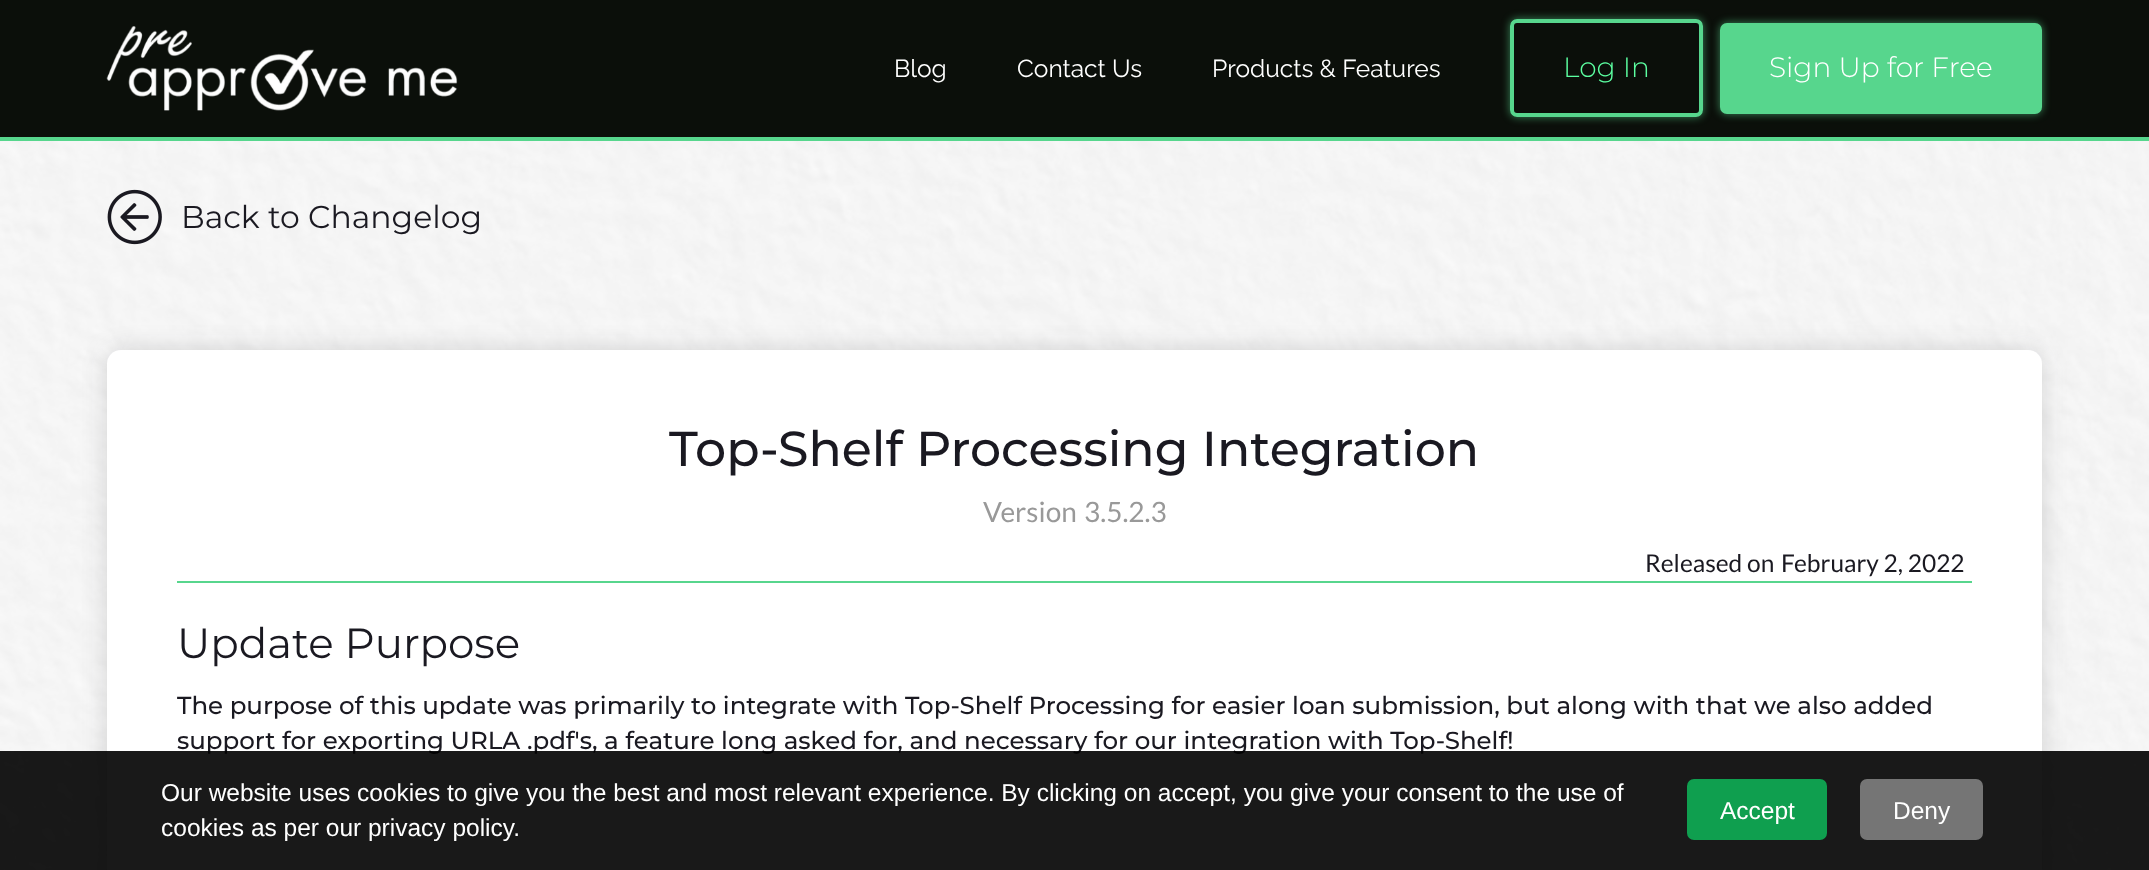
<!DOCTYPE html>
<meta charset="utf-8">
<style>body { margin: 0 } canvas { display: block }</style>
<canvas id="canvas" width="2149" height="870"></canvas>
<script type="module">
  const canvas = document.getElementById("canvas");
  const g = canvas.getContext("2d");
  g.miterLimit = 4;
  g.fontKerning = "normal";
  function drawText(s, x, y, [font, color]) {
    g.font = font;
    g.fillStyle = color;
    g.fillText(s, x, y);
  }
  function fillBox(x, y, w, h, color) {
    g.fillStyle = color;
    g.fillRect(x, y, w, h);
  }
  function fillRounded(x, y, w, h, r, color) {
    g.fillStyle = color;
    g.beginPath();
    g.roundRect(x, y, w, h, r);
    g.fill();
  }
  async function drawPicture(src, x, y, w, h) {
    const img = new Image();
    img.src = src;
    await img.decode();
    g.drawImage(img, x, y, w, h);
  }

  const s1 = ["24.5px Raleway", "#FFFFFF"];
  const s2 = ["300 28px Montserrat", "#5CFFA1"];
  const s3 = ["300 28px Montserrat", "#FFFFFF"];
  const s4 = ["31.5px Montserrat", "#1A1921"];
  const s5 = ["500 49px Montserrat", "#1A1921"];
  const s6 = ["28px Lato", "#999999"];
  const s7 = ["24.5px Lato", "#1A1921"];
  const s8 = ["42px Montserrat", "#1A1921"];
  const s9 = ["500 24.5px Montserrat", "#1A1921"];
  const s10 = ["24.5px Liberation Sans", "#FFFFFF"];

  fillBox(0, 0, 2149, 870, "#FFFFFF");
  await drawPicture("pic1.png", 0, 141, 2149, 729);
  fillBox(0, 0, 2149, 137, "#0B0F0A");
  fillBox(0, 137, 2149, 4, "#57D68D");
  await drawPicture("pic2.png", 106, 26, 352, 85);
  drawText("Blog", 894, 77, s1);
  drawText("Contact Us", 1017, 77, s1);
  drawText("Products & Features", 1212, 77, s1);
  g.save();
  g.beginPath();
  g.moveTo(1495, 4);
  g.lineTo(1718, 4);
  g.lineTo(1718, 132);
  g.lineTo(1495, 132);
  g.closePath();
  g.moveTo(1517, 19);
  g.lineTo(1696, 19);
  g.bezierCurveTo(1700, 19, 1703, 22, 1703, 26);
  g.lineTo(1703, 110);
  g.bezierCurveTo(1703, 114, 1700, 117, 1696, 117);
  g.lineTo(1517, 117);
  g.bezierCurveTo(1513, 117, 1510, 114, 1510, 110);
  g.lineTo(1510, 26);
  g.bezierCurveTo(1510, 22, 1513, 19, 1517, 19);
  g.closePath();
  g.clip("evenodd");
  g.fillStyle = "rgba(87, 214, 141, 0.6)";
  g.filter = "blur(4.5px)";
  g.beginPath();
  g.roundRect(1510, 19, 193, 98, 7);
  g.fill();
  g.filter = "none";
  g.restore();
  g.beginPath();
  g.roundRect(1512, 21, 189, 94, 5);
  g.strokeStyle = "#57D68D";
  g.lineWidth = 4;
  g.stroke();
  drawText("Log In", 1563, 77, s2);
  g.fillStyle = "rgba(87, 214, 141, 0.6)";
  g.filter = "blur(4.5px)";
  g.beginPath();
  g.roundRect(1720, 23, 322, 91, 7);
  g.fill();
  g.filter = "none";
  fillRounded(1720, 23, 322, 91, 7, "#57D68D");
  drawText("Sign Up for Free", 1769, 77, s3);
  await drawPicture("pic3.png", 107, 189, 55, 56);
  drawText("Back to Changelog", 181, 228, s4);
  g.fillStyle = "rgba(26, 25, 33, 0.16)";
  g.filter = "blur(12px)";
  g.beginPath();
  g.roundRect(107, 350, 1935, 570, 14);
  g.fill();
  g.filter = "none";
  fillRounded(107, 350, 1935, 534, 14, "#FFFFFF");
  drawText("Top-Shelf Processing Integration", 669, 466, s5);
  drawText("Version", 983, 522, s6);
  drawText("3.5.2.3", 1084, 522, s6);
  drawText("Released on", 1645, 572, s7);
  drawText("February 2, 2022", 1781, 572, s7);
  fillBox(177, 581, 1795, 2, "#57D68D");
  drawText("Update Purpose", 177, 658, s8);
  drawText("The purpose of this update was primarily to integrate with Top-Shelf Processing for easier loan submission, but along with that we also added", 177, 714, s9);
  drawText("support for exporting URLA .pdf's, a feature long asked for, and necessary for our integration with Top-Shelf!", 177, 749, s9);
  fillBox(0, 751, 2149, 119, "rgba(0, 0, 0, 0.9)");
  drawText("Our website uses cookies to give you the best and most relevant experience. By clicking on accept, you give your consent to the use of", 161, 801, s10);
  drawText("cookies as per our privacy policy.", 161, 836, s10);
  fillRounded(1687, 779, 140, 61, 7, "#0F9F4F");
  drawText("Accept", 1720, 819, s10);
  fillRounded(1860, 779, 123, 61, 7, "#757575");
  drawText("Deny", 1893, 819, s10);
</script>
